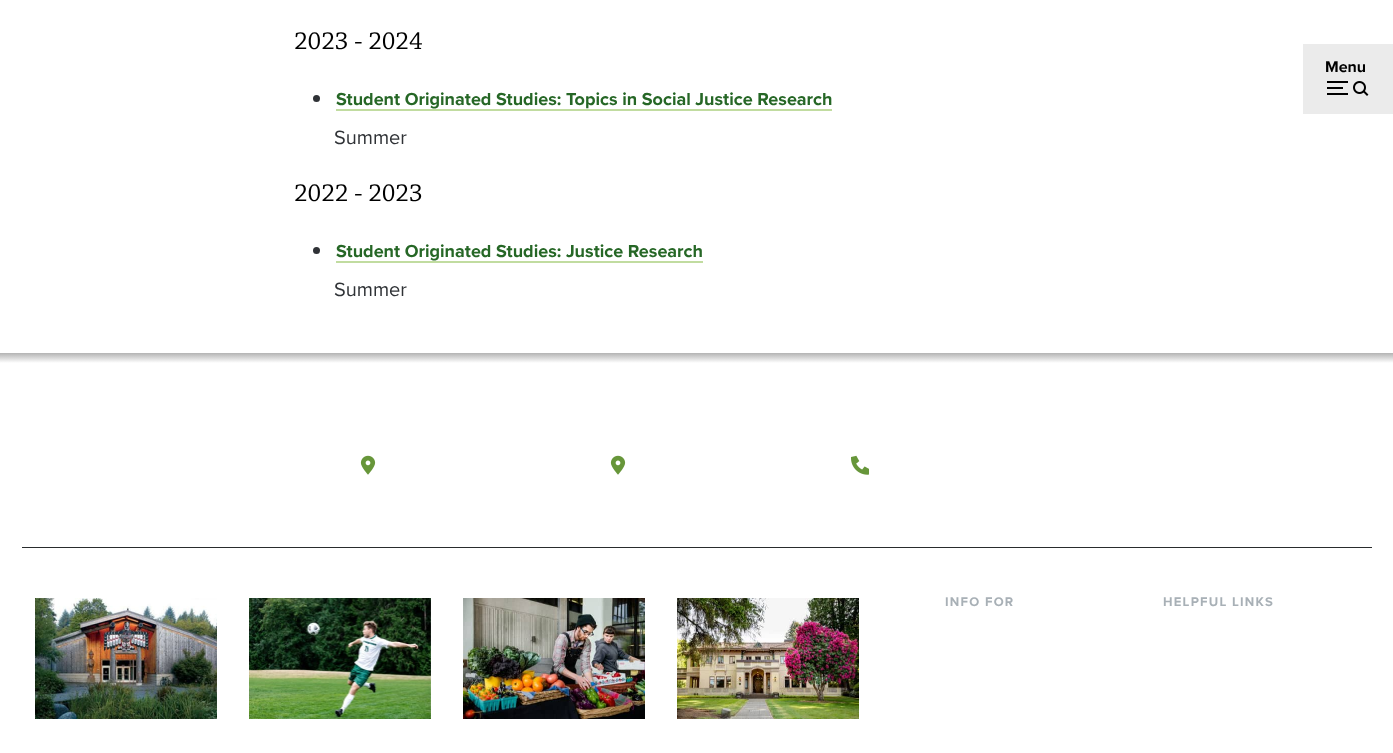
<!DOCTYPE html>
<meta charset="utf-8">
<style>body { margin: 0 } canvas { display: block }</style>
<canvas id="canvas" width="1393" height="753"></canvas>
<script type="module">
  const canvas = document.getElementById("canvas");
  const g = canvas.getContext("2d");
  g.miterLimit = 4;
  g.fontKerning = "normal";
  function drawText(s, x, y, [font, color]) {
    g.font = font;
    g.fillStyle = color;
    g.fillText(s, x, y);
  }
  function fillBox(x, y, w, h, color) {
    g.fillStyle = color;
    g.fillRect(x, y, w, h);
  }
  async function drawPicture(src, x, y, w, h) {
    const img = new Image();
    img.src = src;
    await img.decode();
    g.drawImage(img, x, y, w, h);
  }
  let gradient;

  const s1 = ["26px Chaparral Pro", "#000000"];
  const s2 = ["bold 18px Proxima Nova", "#266726"];
  const s3 = ["20px Proxima Nova", "#2F3236"];
  const s4 = ["bold 16px Proxima Nova", "#000000"];
  const s5 = ["bold 13px Proxima Nova", "#A8B0B6"];

  fillBox(0, 0, 1393, 753, "#FFFFFF");
  drawText("2023 - 2024", 294, 49, s1);
  g.fillStyle = "#2F3236";
  g.beginPath();
  g.arc(316.5, 98.5, 3.5, 0, Math.PI * 2);
  g.fill();
  drawText("Student Originated Studies: Topics in Social Justice Research", 336, 105, s2);
  fillBox(336, 109, 496, 2, "#C1DCA0");
  drawText("Summer", 334, 144, s3);
  drawText("2022 - 2023", 294, 201, s1);
  g.fillStyle = "#2F3236";
  g.beginPath();
  g.arc(316.5, 250.5, 3.5, 0, Math.PI * 2);
  g.fill();
  drawText("Student Originated Studies: Justice Research", 336, 257, s2);
  fillBox(336, 261, 367, 2, "#C1DCA0");
  drawText("Summer", 334, 296, s3);
  fillBox(1303, 44, 90, 70, "#EBEBEB");
  await drawPicture("pic1.png", 1327, 81, 42, 15);
  drawText("Menu", 1325, 72, s4);
  gradient = g.createLinearGradient(697, 353, 697, 363);
  gradient.addColorStop(0, "#B3B3B3");
  gradient.addColorStop(1, "#FFFFFF");
  g.fillStyle = gradient;
  g.fillRect(0, 353, 1393, 10);
  fillBox(22, 547, 1350, 1, "#292C2D");
  await drawPicture("pic2.png", 360, 455, 16, 20);
  await drawPicture("pic2.png", 610, 455, 16, 20);
  await drawPicture("pic3.png", 851, 455, 18, 20);
  await drawPicture("pic4.png", 35, 598, 182, 121);
  await drawPicture("pic5.png", 249, 598, 182, 121);
  await drawPicture("pic6.png", 463, 598, 182, 121);
  await drawPicture("pic7.png", 677, 598, 182, 121);
  g.letterSpacing = "1.25px";
  drawText("INFO FOR", 945, 606, s5);
  drawText("HELPFUL LINKS", 1163, 606, s5);
</script>
